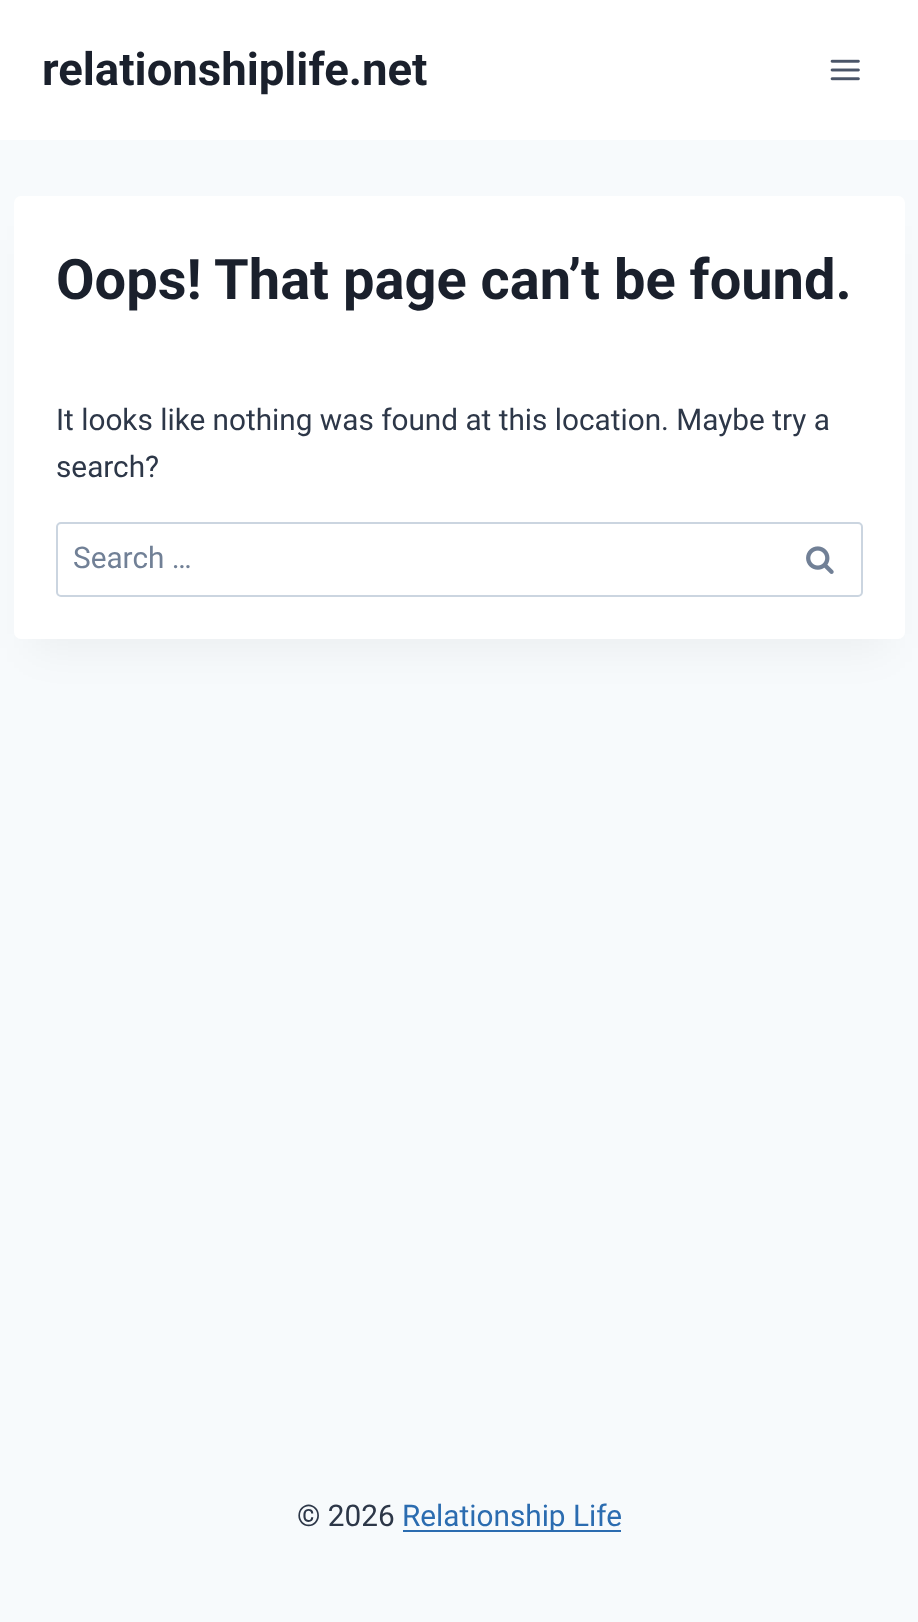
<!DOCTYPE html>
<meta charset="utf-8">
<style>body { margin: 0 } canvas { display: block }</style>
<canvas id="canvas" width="918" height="1622"></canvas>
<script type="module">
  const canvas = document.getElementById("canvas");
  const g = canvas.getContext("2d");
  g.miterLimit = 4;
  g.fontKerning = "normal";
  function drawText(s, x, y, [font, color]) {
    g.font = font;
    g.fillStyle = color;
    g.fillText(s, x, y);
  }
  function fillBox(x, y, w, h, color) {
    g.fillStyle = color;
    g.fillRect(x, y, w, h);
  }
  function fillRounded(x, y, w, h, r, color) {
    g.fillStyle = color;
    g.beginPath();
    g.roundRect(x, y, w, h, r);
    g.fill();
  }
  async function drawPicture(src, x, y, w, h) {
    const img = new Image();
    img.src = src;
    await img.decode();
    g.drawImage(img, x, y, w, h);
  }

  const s1 = ["bold 45.5px Roboto", "#1A202C"];
  const s2 = ["bold 56px Roboto", "#1A202C"];
  const s3 = ["29.75px Roboto", "#2D3748"];
  const s4 = ["29.75px Roboto", "#718096"];
  const s5 = ["29.75px Roboto", "#2B6CB0"];

  fillBox(0, 0, 918, 1622, "#F7FAFC");
  fillBox(0, 0, 918, 140, "#FFFFFF");
  drawText("relationshiplife.net", 42, 85, s1);
  await drawPicture("pic1.png", 830, 59, 30, 22);
  g.fillStyle = "rgba(0, 0, 0, 0.05)";
  g.filter = "blur(22px)";
  g.beginPath();
  g.rect(32, 240, 855, 408);
  g.fill();
  g.filter = "none";
  fillRounded(14, 196, 891, 443, 7, "#FFFFFF");
  drawText("Oops! That page can’t be found.", 56, 299, s2);
  drawText("It looks like nothing was found at this location. Maybe try a", 56, 430, s3);
  drawText("search?", 56, 477, s3);
  g.beginPath();
  g.roundRect(57, 523, 805, 73, 4);
  g.strokeStyle = "#CBD5E0";
  g.lineWidth = 2;
  g.stroke();
  drawText("Search …", 73, 568, s4);
  await drawPicture("pic2.png", 806, 546, 28, 28);
  drawText("© 2026", 297, 1526, s3);
  fillBox(403, 1530, 218, 2, "#2B6CB0");
  drawText("Relationship Life", 402, 1526, s5);
</script>
